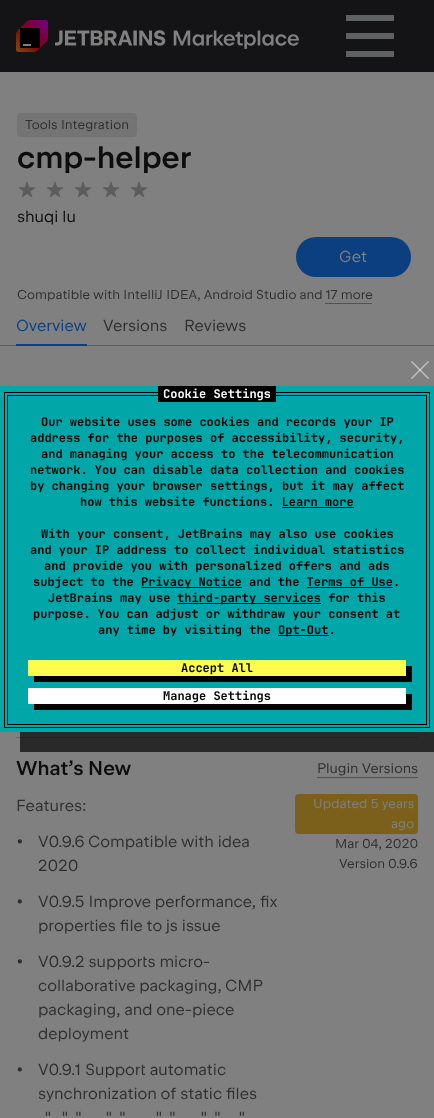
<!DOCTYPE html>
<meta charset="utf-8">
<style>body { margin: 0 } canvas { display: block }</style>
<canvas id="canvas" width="434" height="1118"></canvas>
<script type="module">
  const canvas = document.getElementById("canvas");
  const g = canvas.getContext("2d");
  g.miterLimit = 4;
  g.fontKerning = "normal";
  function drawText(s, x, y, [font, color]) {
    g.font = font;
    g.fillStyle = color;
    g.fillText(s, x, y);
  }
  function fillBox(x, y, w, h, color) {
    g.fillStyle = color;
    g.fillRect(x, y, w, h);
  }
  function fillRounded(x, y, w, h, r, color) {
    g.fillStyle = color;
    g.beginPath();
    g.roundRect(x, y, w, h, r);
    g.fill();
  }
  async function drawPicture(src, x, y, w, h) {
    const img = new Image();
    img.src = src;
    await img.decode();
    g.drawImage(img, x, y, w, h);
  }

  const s1 = ["13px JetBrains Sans", "#2F2F30"];
  const s2 = ["500 31px JetBrains Sans", "#0D0D0E"];
  const s3 = ["16px JetBrains Sans", "#0D0D0E"];
  const s4 = ["16px JetBrains Sans", "#808080"];
  const s5 = ["16px JetBrains Sans", "#0B3F80"];
  const s6 = ["16px JetBrains Sans", "#2F2F30"];
  const s7 = ["500 20px JetBrains Sans", "#0D0D0E"];
  const s8 = ["14px JetBrains Sans", "#2F2F30"];
  const s9 = ["13px JetBrains Sans", "#808080"];
  const s10 = ["bold 12px JetBrains Mono", "#FFFFFF"];
  const s11 = ["bold 12px JetBrains Mono", "#000000"];

  fillBox(0, 0, 434, 1118, "#808080");
  fillBox(0, 345, 434, 1, "#5D5D5E");
  fillBox(0, 0, 434, 72, "#141416");
  await drawPicture("pic1.png", 16, 20, 283, 32);
  g.fillStyle = "#5F6060";
  g.beginPath();
  g.moveTo(394, 15);
  g.lineTo(346, 15);
  g.lineTo(346, 21);
  g.lineTo(394, 21);
  g.closePath();
  g.moveTo(394, 33);
  g.lineTo(346, 33);
  g.lineTo(346, 39);
  g.lineTo(394, 39);
  g.closePath();
  g.moveTo(346, 51);
  g.lineTo(394, 51);
  g.lineTo(394, 57);
  g.lineTo(346, 57);
  g.closePath();
  g.fill();
  fillRounded(17, 113, 120, 24, 4, "#747474");
  g.letterSpacing = "0.05px";
  drawText("Tools Integration", 25, 129, s1);
  g.letterSpacing = "0px";
  drawText("cmp-helper", 17, 168, s2);
  await drawPicture("pic2.png", 18, 181, 18, 17);
  await drawPicture("pic2.png", 46, 181, 18, 17);
  await drawPicture("pic2.png", 74, 181, 18, 17);
  await drawPicture("pic2.png", 102, 181, 18, 17);
  await drawPicture("pic2.png", 130, 181, 18, 17);
  drawText("shuqi lu", 17, 222, s3);
  fillRounded(296, 237, 115, 40, 20, "#0B3F80");
  drawText("Get", 339, 262, s4);
  g.letterSpacing = "0.05px";
  drawText("Compatible with IntelliJ IDEA, Android Studio and 17 more", 17, 299, s1);
  fillBox(325, 303, 47, 1, "#525252");
  g.letterSpacing = "0px";
  drawText("Overview", 16, 331, s5);
  drawText("Versions", 103, 331, s6);
  drawText("Reviews", 184, 331, s6);
  fillBox(16, 344, 71, 2, "#0B3F80");
  fillBox(16, 737, 402, 1, "#666666");
  drawText("What’s New", 16, 775, s7);
  drawText("Plugin Versions", 317, 773, s8);
  fillBox(317, 777, 101, 1, "#525252");
  drawText("Features:", 16, 811, s6);
  drawText("•", 16, 847, s6);
  drawText("V0.9.6 Compatible with idea", 38, 847, s6);
  drawText("2020", 38, 871, s6);
  drawText("•", 16, 907, s6);
  drawText("V0.9.5 Improve performance, fix", 38, 907, s6);
  drawText("properties file to js issue", 38, 931, s6);
  drawText("•", 16, 967, s6);
  drawText("V0.9.2 supports micro-", 38, 967, s6);
  drawText("collaborative packaging, CMP", 38, 991, s6);
  drawText("packaging, and one-piece", 38, 1015, s6);
  drawText("deployment", 38, 1039, s6);
  drawText("•", 16, 1075, s6);
  drawText("V0.9.1 Support automatic", 38, 1075, s6);
  drawText("synchronization of static files", 38, 1099, s6);
  drawText("\"", 45, 1123, s6);
  drawText("\", \"", 62, 1123, s6);
  drawText("\", \"", 106, 1123, s6);
  drawText("\", \"", 156, 1123, s6);
  drawText("\", \"", 201, 1123, s6);
  drawText("\"", 239, 1123, s6);
  fillRounded(295, 794, 123, 40, 4, "#7A601A");
  g.letterSpacing = "0.05px";
  drawText("Updated 5 years", 313, 808, s9);
  drawText("ago", 391, 828, s9);
  drawText("Mar 04, 2020", 335, 848, s1);
  drawText("Version 0.9.6", 339, 868, s1);
  g.fillStyle = "rgba(0, 0, 0, 0.68)";
  g.beginPath();
  g.moveTo(20, 732);
  g.lineTo(20, 752);
  g.lineTo(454, 752);
  g.lineTo(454, 406);
  g.lineTo(434, 406);
  g.lineTo(434, 732);
  g.closePath();
  g.fill();
  fillBox(0, 386, 434, 346, "#01A7A8");
  g.fillStyle = "#BFBFBF";
  g.beginPath();
  g.moveTo(411, 378);
  g.lineTo(428, 361);
  g.lineTo(429, 362);
  g.lineTo(412, 379);
  g.closePath();
  g.fill();
  g.fillStyle = "rgba(255, 255, 255, 0.5)";
  g.beginPath();
  g.moveTo(412, 361);
  g.lineTo(429, 378);
  g.lineTo(428, 379);
  g.lineTo(411, 362);
  g.closePath();
  g.fill();
  fillBox(7, 395, 420, 1, "#000000");
  fillBox(426, 395, 1, 330, "#000000");
  fillBox(7, 395, 1, 265, "#000000");
  fillBox(4, 392, 426, 1, "#000000");
  fillBox(158, 386, 118, 16, "#000000");
  g.letterSpacing = "0px";
  drawText("Cookie Settings", 163, 398, s10);
  fillBox(429, 392, 1, 336, "#000000");
  fillBox(4, 392, 1, 267, "#000000");
  drawText("Our website uses some cookies and records your IP", 41, 426, s11);
  drawText("address for the purposes of accessibility, security,", 30, 442, s11);
  drawText("and managing your access to the telecommunication", 41, 458, s11);
  drawText("network. You can disable data collection and cookies", 30, 474, s11);
  drawText("by changing your browser settings, but it may affect", 30, 490, s11);
  drawText("how this website functions. Learn more", 80, 506, s11);
  fillBox(282, 507, 72, 1, "#000000");
  drawText("With your consent, JetBrains may also use cookies", 41, 538, s11);
  drawText("and your IP address to collect individual statistics", 30, 554, s11);
  drawText("and provide you with personalized offers and ads", 44, 570, s11);
  drawText("subject to the", 33, 586, s11);
  fillBox(141, 587, 101, 1, "#000000");
  drawText("Privacy Notice and the Terms of Use.", 141, 586, s11);
  fillBox(307, 587, 86, 1, "#000000");
  drawText("JetBrains may use", 48, 602, s11);
  fillBox(177, 603, 144, 1, "#000000");
  drawText("third-party services for this", 177, 602, s11);
  drawText("purpose. You can adjust or withdraw your consent at", 33, 618, s11);
  drawText("any time by visiting the", 98, 634, s11);
  fillBox(278, 635, 51, 1, "#000000");
  drawText("Opt-Out.", 278, 634, s11);
  fillBox(7, 724, 420, 1, "#000000");
  fillBox(7, 660, 1, 65, "#000000");
  fillBox(4, 727, 426, 1, "#000000");
  fillBox(4, 659, 1, 69, "#000000");
  g.beginPath();
  g.moveTo(34, 676);
  g.lineTo(34, 682);
  g.lineTo(412, 682);
  g.lineTo(412, 666);
  g.lineTo(406, 666);
  g.lineTo(406, 676);
  g.closePath();
  g.fill();
  fillBox(28, 660, 378, 16, "#FEFC4F");
  drawText("Accept All", 181, 672, s11);
  g.beginPath();
  g.moveTo(34, 704);
  g.lineTo(34, 710);
  g.lineTo(412, 710);
  g.lineTo(412, 694);
  g.lineTo(406, 694);
  g.lineTo(406, 704);
  g.closePath();
  g.fill();
  fillBox(28, 688, 378, 16, "#FFFFFF");
  drawText("Manage Settings", 163, 700, s11);
</script>
